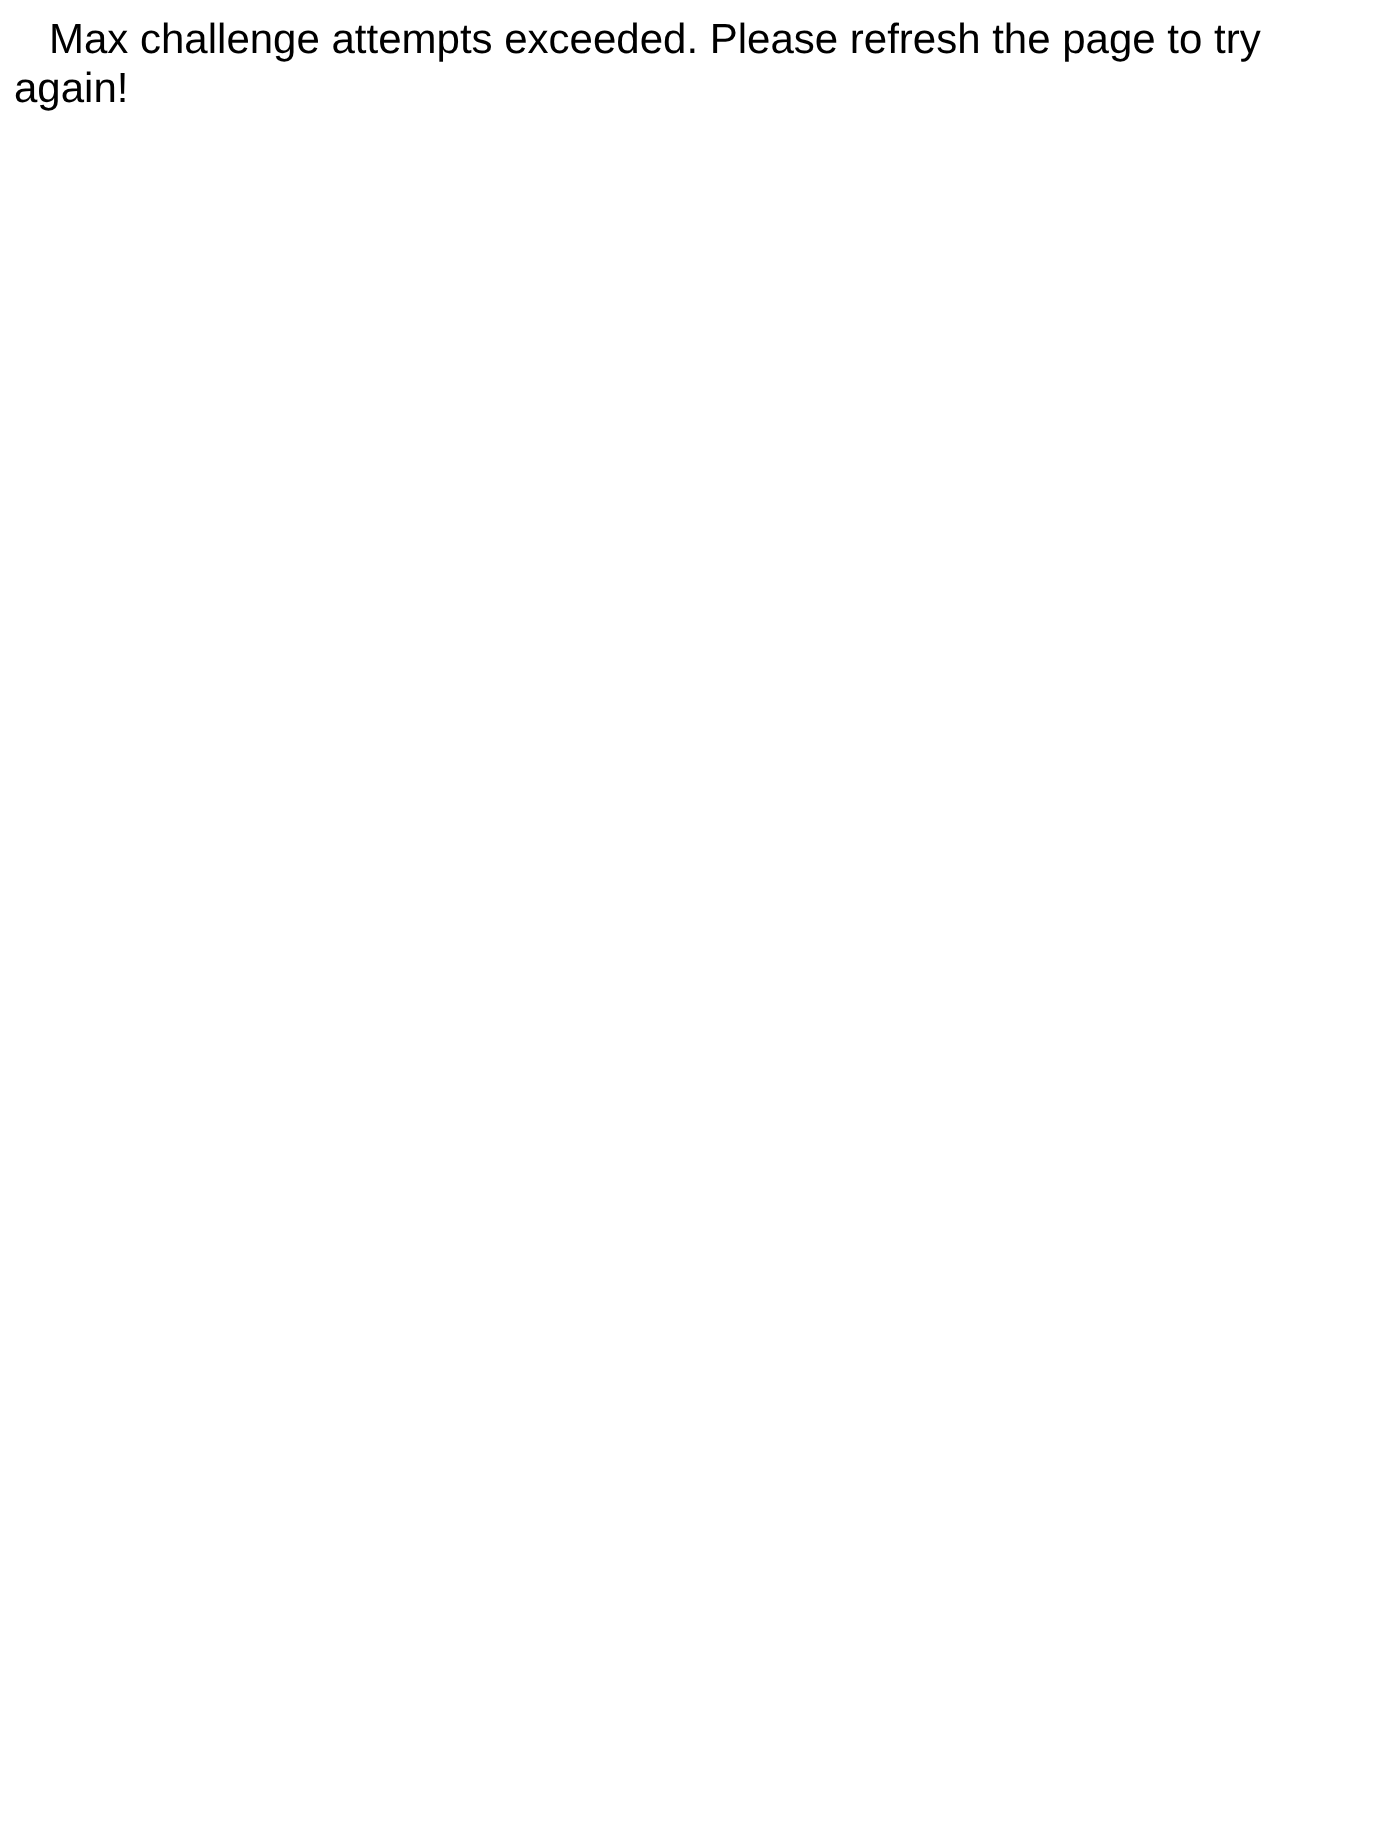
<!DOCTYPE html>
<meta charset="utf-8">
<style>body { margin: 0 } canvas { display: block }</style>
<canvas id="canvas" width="1391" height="1836"></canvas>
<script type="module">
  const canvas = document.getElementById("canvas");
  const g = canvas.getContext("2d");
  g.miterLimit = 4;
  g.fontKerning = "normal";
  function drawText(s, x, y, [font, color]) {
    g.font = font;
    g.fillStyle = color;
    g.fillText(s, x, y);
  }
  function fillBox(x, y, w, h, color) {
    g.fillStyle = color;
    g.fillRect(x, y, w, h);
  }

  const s1 = ["42px Liberation Sans", "#000000"];

  fillBox(0, 0, 1391, 1836, "#FFFFFF");
  drawText("Max challenge attempts exceeded. Please refresh the page to try", 49, 53, s1);
  drawText("again!", 14, 102, s1);
</script>
